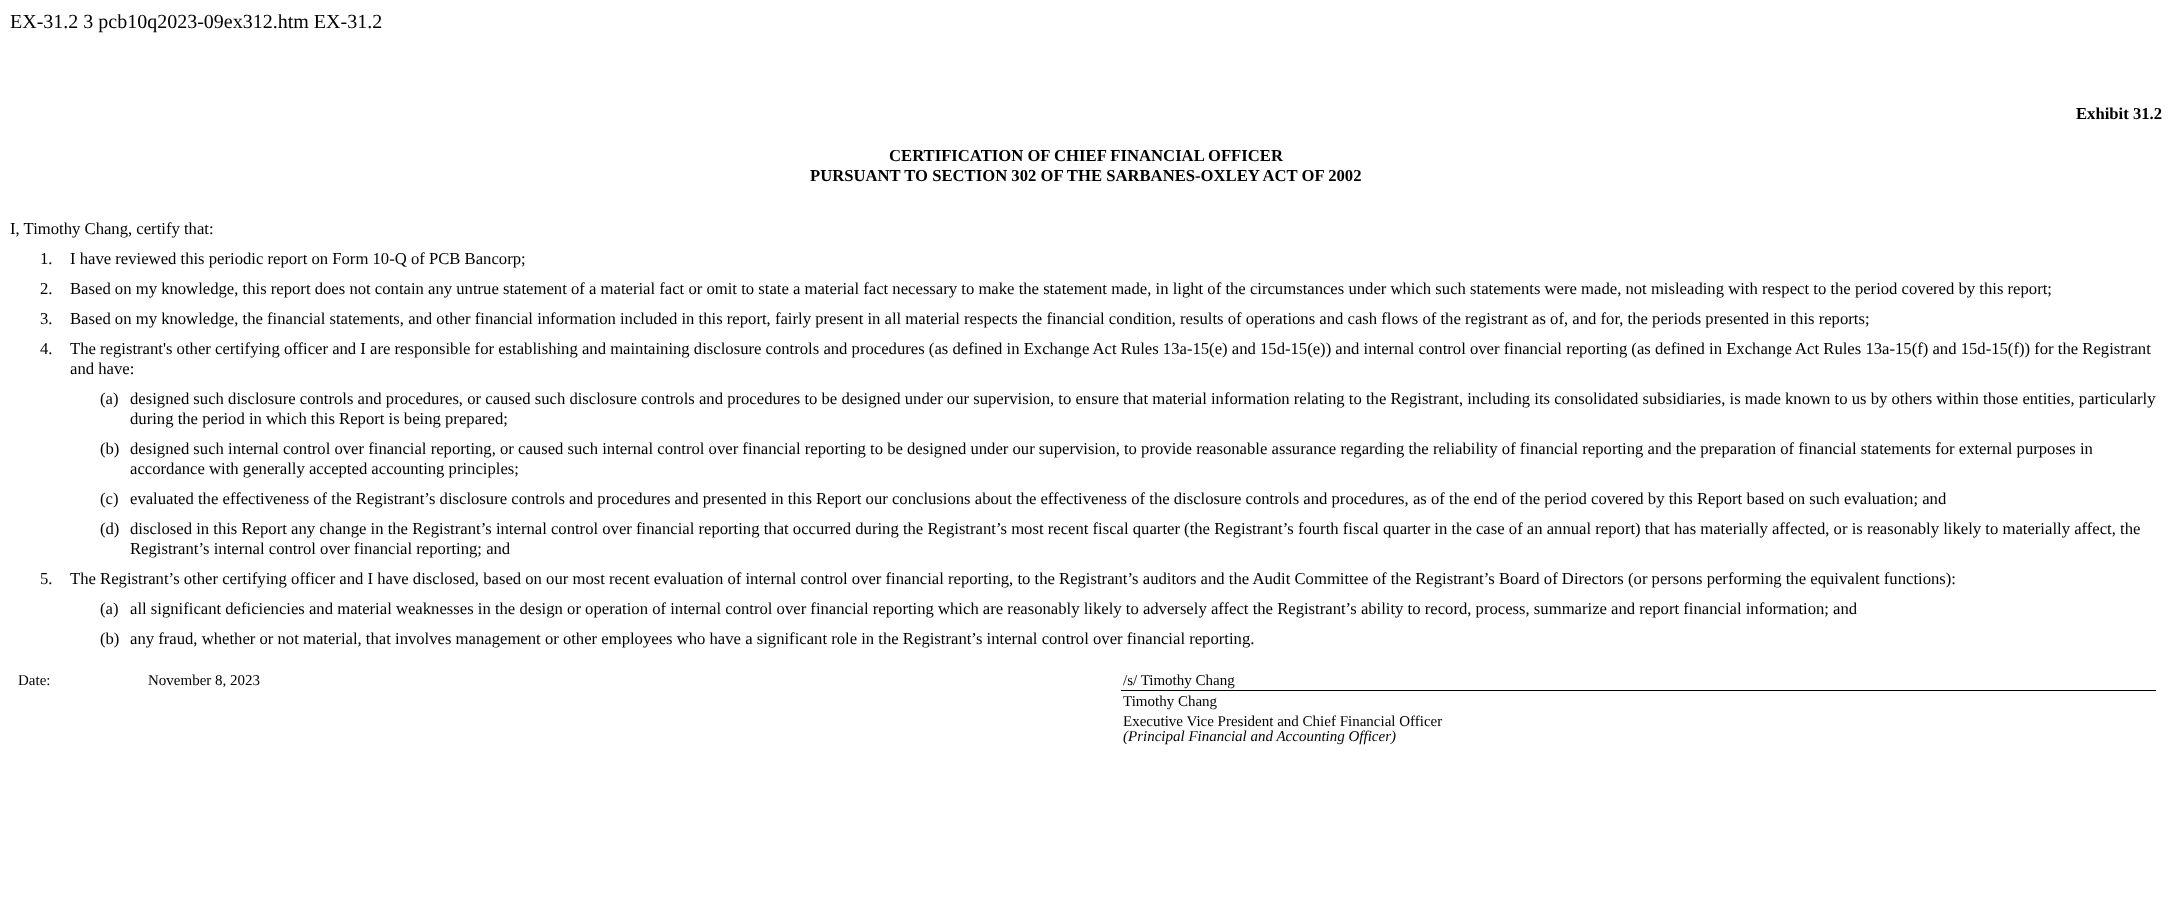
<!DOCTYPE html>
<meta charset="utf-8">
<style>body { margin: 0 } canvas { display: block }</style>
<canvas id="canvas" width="2172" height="923"></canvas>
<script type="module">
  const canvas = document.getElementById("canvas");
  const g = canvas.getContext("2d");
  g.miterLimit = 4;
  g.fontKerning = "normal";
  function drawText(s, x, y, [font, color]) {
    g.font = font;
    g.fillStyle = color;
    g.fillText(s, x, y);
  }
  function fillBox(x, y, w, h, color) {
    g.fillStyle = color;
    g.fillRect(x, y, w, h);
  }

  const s1 = ["20px Liberation Serif", "#000000"];
  const s2 = ["bold 16.67px Liberation Serif", "#000000"];
  const s3 = ["16.67px Liberation Serif", "#000000"];
  const s4 = ["15px Liberation Serif", "#000000"];
  const s5 = ["italic 15px Liberation Serif", "#000000"];

  fillBox(0, 0, 2172, 923, "#FFFFFF");
  drawText("EX-31.2 3 pcb10q2023-09ex312.htm EX-31.2", 10, 28, s1);
  drawText("Exhibit 31.2", 2076, 119, s2);
  drawText("CERTIFICATION OF CHIEF FINANCIAL OFFICER", 889, 161, s2);
  drawText("PURSUANT TO SECTION 302 OF THE SARBANES-OXLEY ACT OF 2002", 810, 181, s2);
  drawText("I, Timothy Chang, certify that:", 10, 234, s3);
  drawText("1.", 40, 264, s3);
  drawText("I have reviewed this periodic report on Form 10-Q of PCB Bancorp;", 70, 264, s3);
  drawText("2.", 40, 294, s3);
  drawText("Based on my knowledge, this report does not contain any untrue statement of a material fact or omit to state a material fact necessary to make the statement made, in light of the circumstances under which such statements were made, not misleading with respect to the period covered by this report;", 70, 294, s3);
  drawText("3.", 40, 324, s3);
  drawText("Based on my knowledge, the financial statements, and other financial information included in this report, fairly present in all material respects the financial condition, results of operations and cash flows of the registrant as of, and for, the periods presented in this reports;", 70, 324, s3);
  drawText("4.", 40, 354, s3);
  drawText("The registrant's other certifying officer and I are responsible for establishing and maintaining disclosure controls and procedures (as defined in Exchange Act Rules 13a-15(e) and 15d-15(e)) and internal control over financial reporting (as defined in Exchange Act Rules 13a-15(f) and 15d-15(f)) for the Registrant", 70, 354, s3);
  drawText("and have:", 70, 374, s3);
  drawText("(a)", 100, 404, s3);
  drawText("designed such disclosure controls and procedures, or caused such disclosure controls and procedures to be designed under our supervision, to ensure that material information relating to the Registrant, including its consolidated subsidiaries, is made known to us by others within those entities, particularly", 130, 404, s3);
  drawText("during the period in which this Report is being prepared;", 130, 424, s3);
  drawText("(b)", 100, 454, s3);
  drawText("designed such internal control over financial reporting, or caused such internal control over financial reporting to be designed under our supervision, to provide reasonable assurance regarding the reliability of financial reporting and the preparation of financial statements for external purposes in", 130, 454, s3);
  drawText("accordance with generally accepted accounting principles;", 130, 474, s3);
  drawText("(c)", 100, 504, s3);
  drawText("evaluated the effectiveness of the Registrant’s disclosure controls and procedures and presented in this Report our conclusions about the effectiveness of the disclosure controls and procedures, as of the end of the period covered by this Report based on such evaluation; and", 130, 504, s3);
  drawText("(d)", 100, 534, s3);
  drawText("disclosed in this Report any change in the Registrant’s internal control over financial reporting that occurred during the Registrant’s most recent fiscal quarter (the Registrant’s fourth fiscal quarter in the case of an annual report) that has materially affected, or is reasonably likely to materially affect, the", 130, 534, s3);
  drawText("Registrant’s internal control over financial reporting; and", 130, 554, s3);
  drawText("5.", 40, 584, s3);
  drawText("The Registrant’s other certifying officer and I have disclosed, based on our most recent evaluation of internal control over financial reporting, to the Registrant’s auditors and the Audit Committee of the Registrant’s Board of Directors (or persons performing the equivalent functions):", 70, 584, s3);
  drawText("(a)", 100, 614, s3);
  drawText("all significant deficiencies and material weaknesses in the design or operation of internal control over financial reporting which are reasonably likely to adversely affect the Registrant’s ability to record, process, summarize and report financial information; and", 130, 614, s3);
  drawText("(b)", 100, 644, s3);
  drawText("any fraud, whether or not material, that involves management or other employees who have a significant role in the Registrant’s internal control over financial reporting.", 130, 644, s3);
  drawText("Date:", 18, 685, s4);
  drawText("November 8, 2023", 148, 685, s4);
  drawText("/s/ Timothy Chang", 1123, 685, s4);
  fillBox(1121, 690, 1035, 1, "#000000");
  drawText("Timothy Chang", 1123, 706, s4);
  drawText("Executive Vice President and Chief Financial Officer", 1123, 726, s4);
  drawText("(Principal Financial and Accounting Officer)", 1123, 741, s5);
</script>
